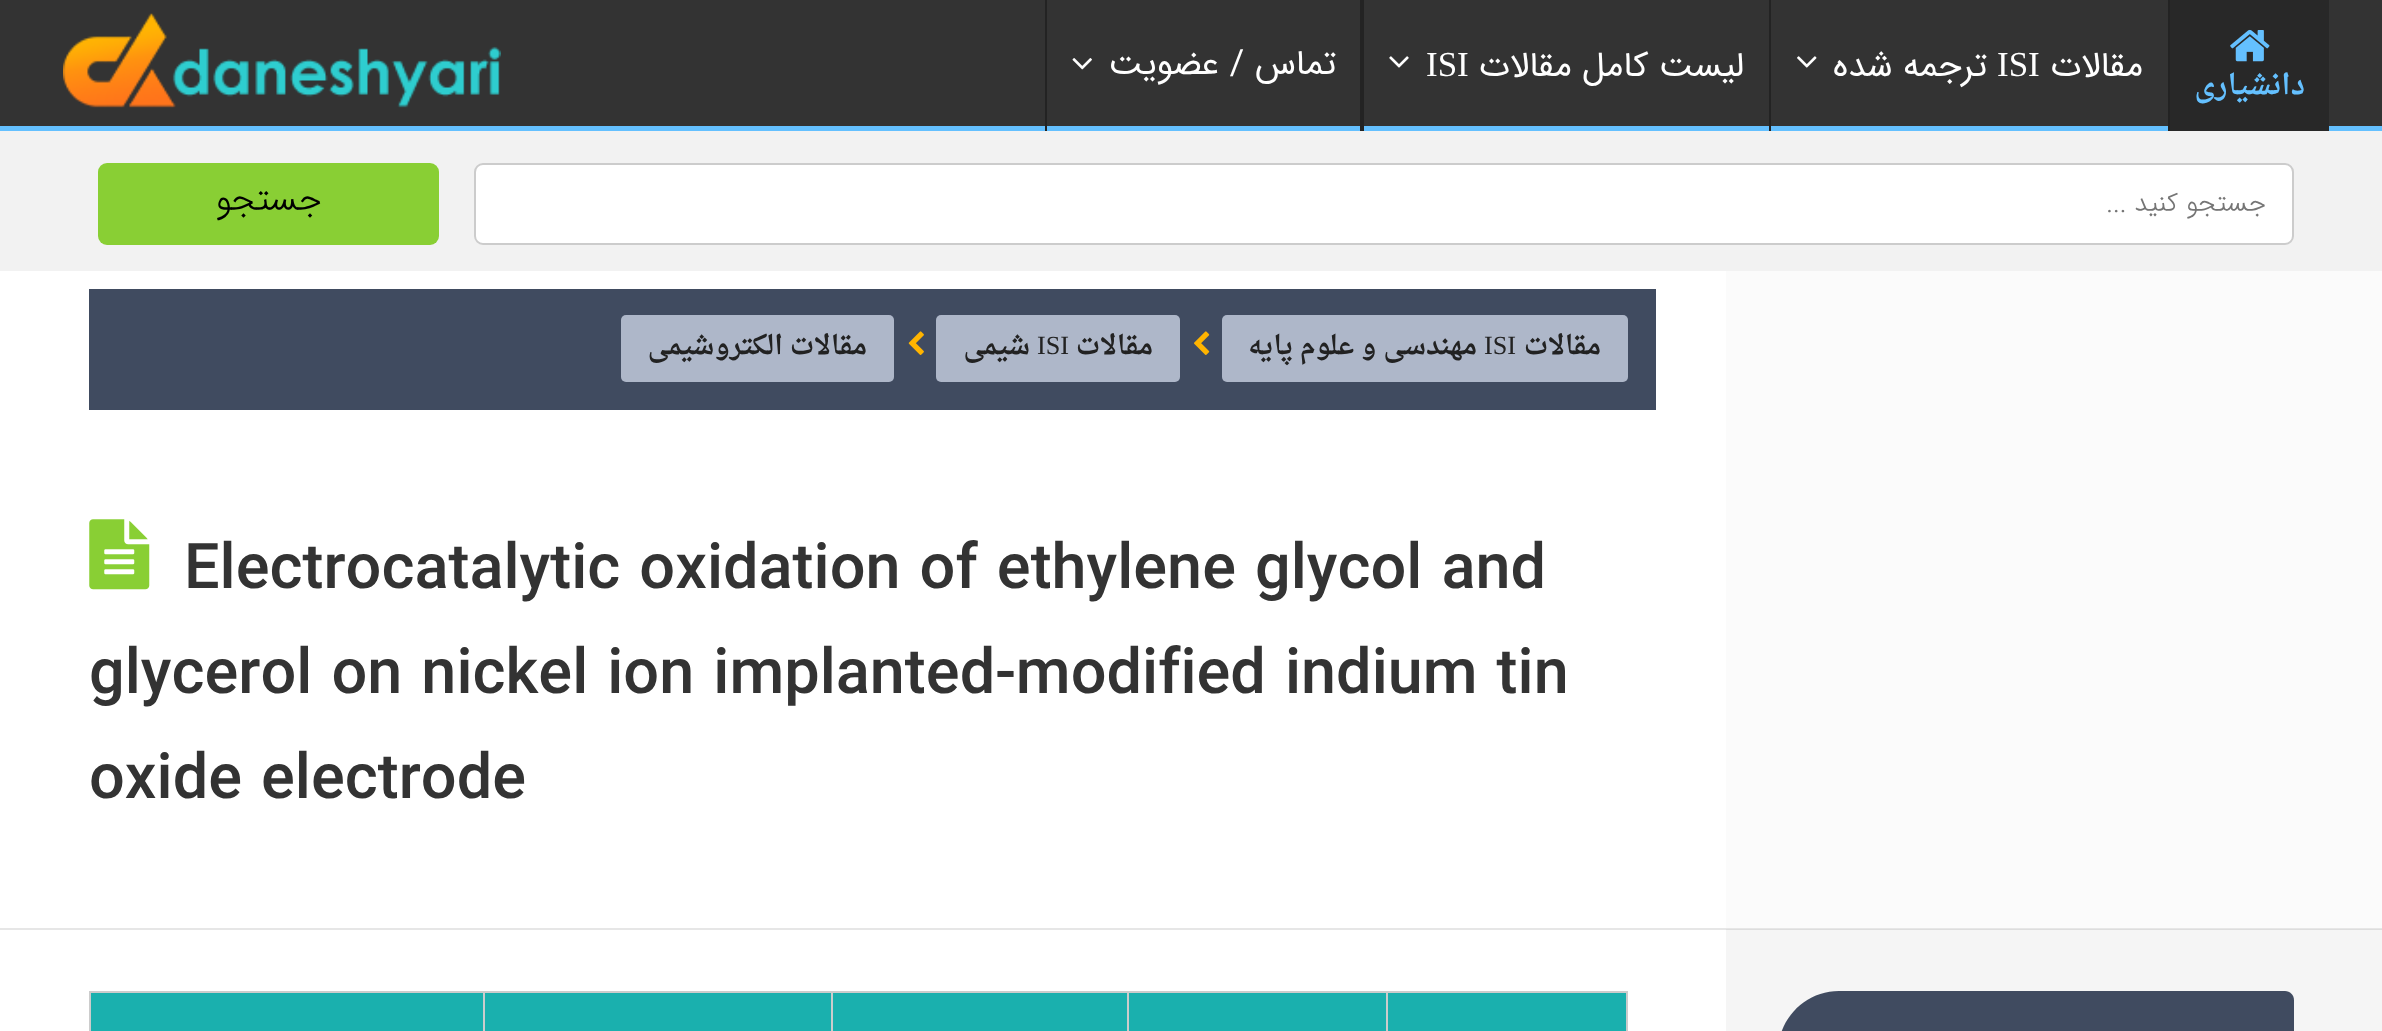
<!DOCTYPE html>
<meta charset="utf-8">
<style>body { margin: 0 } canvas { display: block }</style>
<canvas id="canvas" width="2382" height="1031"></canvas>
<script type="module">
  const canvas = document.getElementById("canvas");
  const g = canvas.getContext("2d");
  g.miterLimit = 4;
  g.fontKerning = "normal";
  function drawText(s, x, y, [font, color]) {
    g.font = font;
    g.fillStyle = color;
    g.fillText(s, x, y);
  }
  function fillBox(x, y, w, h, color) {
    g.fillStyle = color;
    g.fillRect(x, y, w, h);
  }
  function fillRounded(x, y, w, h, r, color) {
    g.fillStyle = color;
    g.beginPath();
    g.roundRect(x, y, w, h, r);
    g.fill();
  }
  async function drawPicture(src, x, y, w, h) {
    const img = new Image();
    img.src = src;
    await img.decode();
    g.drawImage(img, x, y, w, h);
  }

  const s1 = ["35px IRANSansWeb", "#FFFFFF"];
  const s2 = ["35px Liberation Serif", "#FFFFFF"];
  const s3 = ["bold 28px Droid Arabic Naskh", "#64C0FF"];
  const s4 = ["300 35px IRANSansWeb", "#000000"];
  const s5 = ["300 26.25px IRANSansWeb", "#757575"];
  const s6 = ["bold 26.25px Droid Arabic Naskh", "#222222"];
  const s7 = ["26.25px Liberation Serif", "#222222"];
  const s8 = ["500 63px IRANSansWeb", "#333333"];

  fillBox(0, 0, 2382, 1031, "#FFFFFF");
  fillBox(1726, 930, 656, 101, "#F5F5F5");
  fillBox(0, 0, 2382, 126, "#333333");
  fillBox(0, 126, 2382, 5, "#64C0FF");
  await drawPicture("pic1.png", 63, 13, 438, 95);
  fillBox(1045, 0, 2, 131, "#232323");
  await drawPicture("pic2.png", 1072, 58, 20, 12);
  g.direction = "rtl";
  drawText("تماس / عضویت", 1336, 74, s1);
  fillBox(1360, 0, 4, 131, "#232323");
  await drawPicture("pic3.png", 1389, 56, 20, 12);
  g.direction = "ltr";
  drawText("ISI", 1426, 76, s2);
  g.direction = "rtl";
  drawText("لیست کامل مقالات", 1744, 76, s1);
  fillBox(1769, 0, 2, 131, "#232323");
  await drawPicture("pic4.png", 1797, 56, 20, 12);
  drawText("ترجمه شده", 1987, 76, s1);
  g.direction = "ltr";
  drawText("ISI", 1997, 76, s2);
  g.direction = "rtl";
  drawText("مقالات", 2143, 76, s1);
  fillBox(2168, 0, 2, 131, "#232323");
  fillBox(2170, 0, 159, 131, "#282828");
  await drawPicture("pic5.png", 2230, 29, 40, 33);
  drawText("دانشیاری", 2305, 94, s3);
  fillBox(0, 131, 2382, 140, "#F2F2F2");
  fillRounded(98, 163, 341, 82, 9, "#89CF34");
  drawText("جستجو", 322, 210, s4);
  g.fillStyle = "#FFFFFF";
  g.beginPath();
  g.roundRect(475, 164, 1818, 80, 8);
  g.fill();
  g.strokeStyle = "#CCCCCC";
  g.lineWidth = 2;
  g.stroke();
  drawText("جستجو کنید ...", 2266, 211, s5);
  fillBox(0, 928, 2382, 2, "#E6E6E6");
  fillBox(1726, 929, 656, 1, "#DDDDDD");
  fillBox(89, 289, 1567, 121, "#404B60");
  fillRounded(621, 315, 273, 67, 5, "#AEB7C9");
  drawText("الکتروشیمی", 783, 354, s6);
  drawText("مقالات", 867, 354, s6);
  await drawPicture("pic6.png", 908, 331, 16, 24);
  fillRounded(936, 315, 244, 67, 5, "#AEB7C9");
  drawText("شیمی", 1030, 354, s6);
  g.direction = "ltr";
  drawText("ISI", 1037, 354, s7);
  g.direction = "rtl";
  drawText("مقالات", 1153, 354, s6);
  await drawPicture("pic7.png", 1194, 331, 16, 24);
  fillRounded(1222, 315, 406, 67, 5, "#AEB7C9");
  drawText("مهندسی و علوم پایه", 1477, 354, s6);
  g.direction = "ltr";
  drawText("ISI", 1484, 354, s7);
  g.direction = "rtl";
  drawText("مقالات", 1601, 354, s6);
  await drawPicture("pic8.png", 89, 519, 61, 71);
  g.direction = "ltr";
  drawText("Electrocatalytic oxidation of ethylene glycol and", 184, 588, s8);
  drawText("glycerol on nickel ion implanted-modified indium tin", 89, 693, s8);
  drawText("oxide electrode", 89, 798, s8);
  fillBox(1726, 271, 656, 657, "#FBFBFB");
  fillBox(91, 993, 392, 38, "#1AB0AE");
  fillBox(89, 991, 396, 2, "#CCCCCC");
  fillBox(483, 991, 2, 40, "#CCCCCC");
  fillBox(89, 991, 2, 40, "#CCCCCC");
  fillBox(485, 993, 346, 38, "#1AB0AE");
  fillBox(483, 991, 350, 2, "#CCCCCC");
  fillBox(831, 991, 2, 40, "#CCCCCC");
  fillBox(833, 993, 294, 38, "#1AB0AE");
  fillBox(831, 991, 298, 2, "#CCCCCC");
  fillBox(1127, 991, 2, 40, "#CCCCCC");
  fillBox(1129, 993, 257, 38, "#1AB0AE");
  fillBox(1127, 991, 261, 2, "#CCCCCC");
  fillBox(1386, 991, 2, 40, "#CCCCCC");
  fillBox(1388, 993, 238, 38, "#1AB0AE");
  fillBox(1386, 991, 242, 2, "#CCCCCC");
  fillBox(1626, 991, 2, 40, "#CCCCCC");
  g.fillStyle = "#404B60";
  g.beginPath();
  g.moveTo(1839, 991);
  g.lineTo(2285, 991);
  g.bezierCurveTo(2290, 991, 2294, 995, 2294, 1000);
  g.lineTo(2294, 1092);
  g.lineTo(1778, 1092);
  g.lineTo(1778, 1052);
  g.bezierCurveTo(1778, 1018.5, 1805.5, 991, 1839, 991);
  g.closePath();
  g.fill();
</script>
